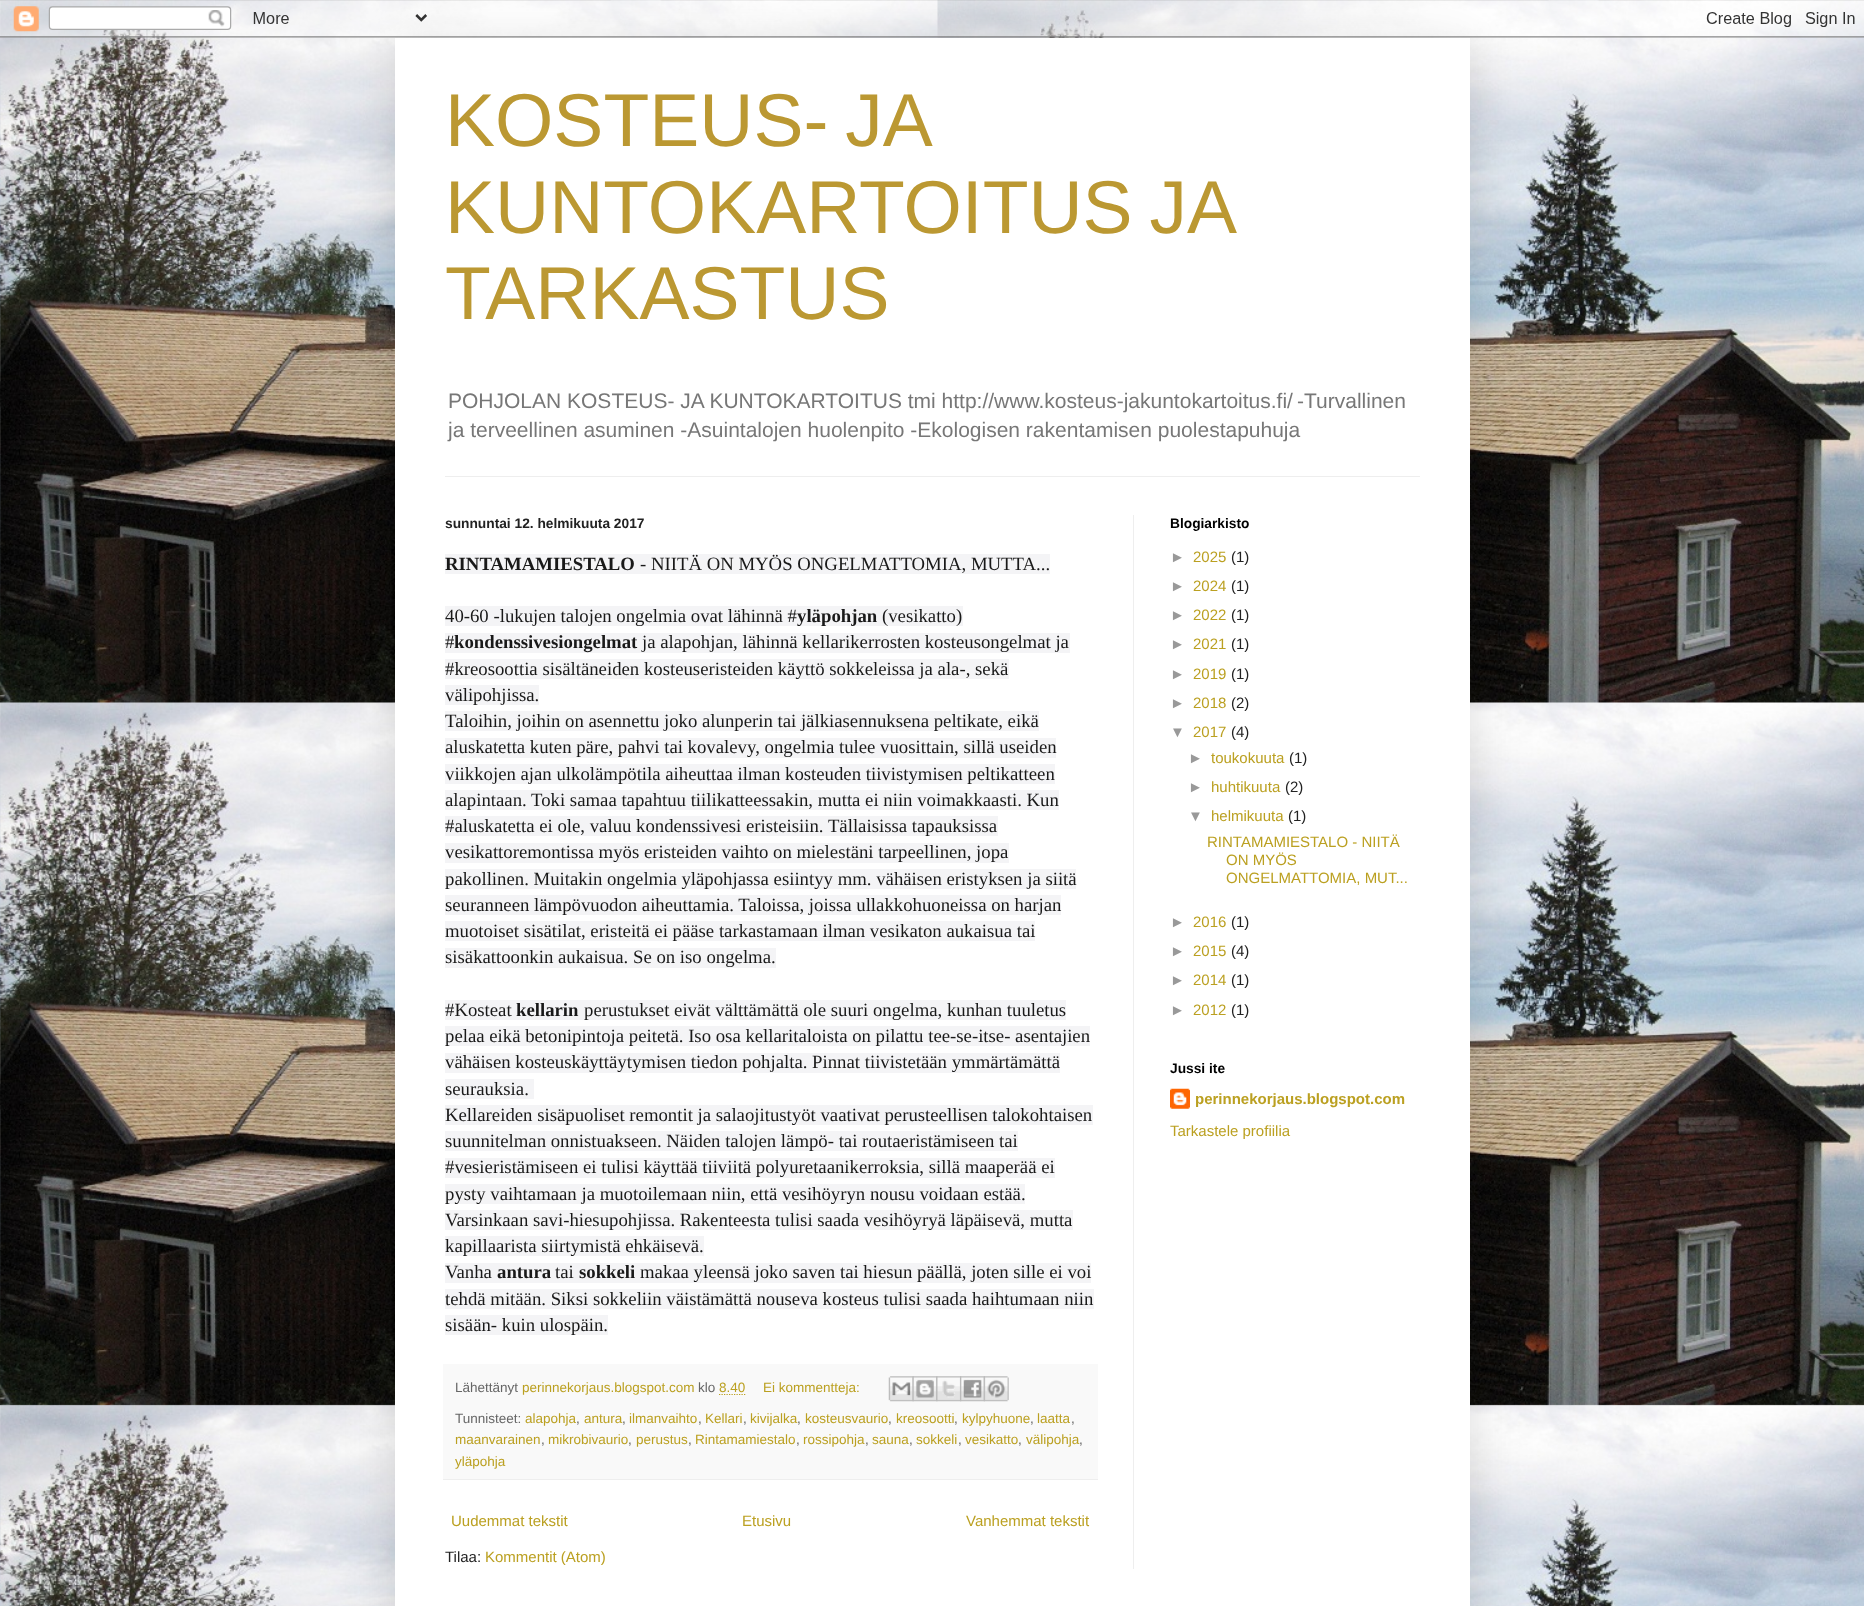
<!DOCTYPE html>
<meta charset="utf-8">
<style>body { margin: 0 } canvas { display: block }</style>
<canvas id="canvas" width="1864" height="1606"></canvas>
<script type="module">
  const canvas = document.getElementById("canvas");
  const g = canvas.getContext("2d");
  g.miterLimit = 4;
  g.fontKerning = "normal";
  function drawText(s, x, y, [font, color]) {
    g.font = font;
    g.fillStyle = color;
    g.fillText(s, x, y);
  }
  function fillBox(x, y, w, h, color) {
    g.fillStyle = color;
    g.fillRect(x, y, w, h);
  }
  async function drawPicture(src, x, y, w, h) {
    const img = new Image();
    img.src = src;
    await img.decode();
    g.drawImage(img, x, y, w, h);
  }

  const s1 = ["75px Liberation Sans", "#BB9832"];
  const s2 = ["21px Liberation Sans", "#777777"];
  const s3 = ["bold 13.75px Liberation Sans", "#222222"];
  const s4 = ["bold 18.75px Liberation Serif", "#191919"];
  const s5 = ["18.75px Liberation Serif", "#191919"];
  const s6 = ["13.5px Liberation Sans", "#666666"];
  const s7 = ["13.5px Liberation Sans", "#BBA021"];
  const s8 = ["15px Liberation Sans", "#BBA021"];
  const s9 = ["15px Liberation Sans", "#222222"];
  const s10 = ["bold 13.75px Liberation Sans", "#000000"];
  const s11 = ["15px Liberation Sans", "#999999"];
  const s12 = ["bold 15px Liberation Sans", "#BBA021"];

  fillBox(0, 0, 1864, 1606, "#FFFFFF");
  await drawPicture("pic1.png", 0, 0, 1864, 1606);
  g.fillStyle = "rgba(0, 0, 0, 0.15)";
  g.filter = "blur(25px)";
  g.beginPath();
  g.rect(395, 38, 1075, 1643);
  g.fill();
  g.filter = "none";
  await drawPicture("pic2.png", 0, 0, 1864, 38);
  fillBox(395, 38, 1075, 1568, "#FFFFFF");
  g.wordSpacing = "-4px";
  drawText("KOSTEUS- JA", 445, 146, s1);
  drawText("KUNTOKARTOITUS JA", 445, 233, s1);
  g.wordSpacing = "0px";
  drawText("TARKASTUS", 445, 319, s1);
  drawText("POHJOLAN KOSTEUS- JA KUNTOKARTOITUS tmi http://www.kosteus-jakuntokartoitus.fi/", 448, 408, s2);
  drawText("-Turvallinen", 1297, 408, s2);
  drawText("ja terveellinen asuminen -Asuintalojen huolenpito -Ekologisen rakentamisen puolestapuhuja", 448, 437, s2);
  fillBox(445, 476, 975, 1, "#EEEEEE");
  fillBox(1133, 515, 1, 1054, "#EEEEEE");
  drawText("sunnuntai 12. helmikuuta 2017", 445, 528, s3);
  fillBox(445, 554, 605, 20, "#F4F4F6");
  drawText("RINTAMAMIESTALO", 445, 570, s4);
  drawText("- NIITÄ ON MYÖS ONGELMATTOMIA, MUTTA...", 640, 570, s5);
  fillBox(445, 606, 518, 20, "#F4F4F6");
  drawText("40-60 -lukujen talojen ongelmia ovat lähinnä #", 445, 622, s5);
  drawText("yläpohjan", 797, 622, s4);
  drawText("(vesikatto)", 882, 622, s5);
  fillBox(445, 633, 625, 20, "#F4F4F6");
  drawText("#", 445, 648, s5);
  drawText("kondenssivesiongelmat", 454, 648, s4);
  drawText("ja alapohjan, lähinnä kellarikerrosten kosteusongelmat ja", 642, 648, s5);
  fillBox(445, 659, 564, 20, "#F4F4F6");
  drawText("#kreosoottia sisältäneiden kosteuseristeiden käyttö sokkeleissa ja ala-, sekä", 445, 675, s5);
  fillBox(445, 685, 94, 20, "#F4F4F6");
  drawText("välipohjissa.", 445, 701, s5);
  fillBox(445, 711, 594, 20, "#F4F4F6");
  drawText("Taloihin, joihin on asennettu joko alunperin tai jälkiasennuksena peltikate, eikä", 445, 727, s5);
  fillBox(445, 738, 611, 20, "#F4F4F6");
  drawText("aluskatetta kuten päre, pahvi tai kovalevy, ongelmia tulee vuosittain, sillä useiden", 445, 753, s5);
  fillBox(445, 764, 610, 20, "#F4F4F6");
  drawText("viikkojen ajan ulkolämpötila aiheuttaa ilman kosteuden tiivistymisen peltikatteen", 445, 780, s5);
  fillBox(445, 790, 614, 20, "#F4F4F6");
  drawText("alapintaan. Toki samaa tapahtuu tiilikatteessakin, mutta ei niin voimakkaasti. Kun", 445, 806, s5);
  fillBox(445, 816, 553, 20, "#F4F4F6");
  drawText("#aluskatetta ei ole, valuu kondenssivesi eristeisiin. Tällaisissa tapauksissa", 445, 832, s5);
  fillBox(445, 843, 564, 20, "#F4F4F6");
  drawText("vesikattoremontissa myös eristeiden vaihto on mielestäni tarpeellinen, jopa", 445, 858, s5);
  fillBox(445, 869, 631, 20, "#F4F4F6");
  drawText("pakollinen. Muitakin ongelmia yläpohjassa esiintyy mm. vähäisen eristyksen ja siitä", 445, 885, s5);
  fillBox(445, 895, 616, 20, "#F4F4F6");
  drawText("seuranneen lämpövuodon aiheuttamia. Taloissa, joissa ullakkohuoneissa on harjan", 445, 911, s5);
  fillBox(445, 921, 590, 20, "#F4F4F6");
  drawText("muotoiset sisätilat, eristeitä ei pääse tarkastamaan ilman vesikaton aukaisua tai", 445, 937, s5);
  fillBox(445, 948, 331, 20, "#F4F4F6");
  drawText("sisäkattoonkin aukaisua. Se on iso ongelma.", 445, 963, s5);
  fillBox(445, 1000, 621, 20, "#F4F4F6");
  drawText("#Kosteat", 445, 1016, s5);
  drawText("kellarin", 516, 1016, s4);
  drawText("perustukset eivät välttämättä ole suuri ongelma, kunhan tuuletus", 584, 1016, s5);
  fillBox(445, 1026, 645, 20, "#F4F4F6");
  drawText("pelaa eikä betonipintoja peitetä. Iso osa kellaritaloista on pilattu tee-se-itse- asentajien", 445, 1042, s5);
  fillBox(445, 1053, 615, 20, "#F4F4F6");
  drawText("vähäisen kosteuskäyttäytymisen tiedon pohjalta. Pinnat tiivistetään ymmärtämättä", 445, 1068, s5);
  fillBox(445, 1079, 89, 20, "#F4F4F6");
  drawText("seurauksia.", 445, 1095, s5);
  fillBox(445, 1105, 648, 20, "#F4F4F6");
  drawText("Kellareiden sisäpuoliset remontit ja salaojitustyöt vaativat perusteellisen talokohtaisen", 445, 1121, s5);
  fillBox(445, 1131, 573, 20, "#F4F4F6");
  drawText("suunnitelman onnistuakseen. Näiden talojen lämpö- tai routaeristämiseen tai", 445, 1147, s5);
  fillBox(445, 1158, 610, 20, "#F4F4F6");
  drawText("#vesieristämiseen ei tulisi käyttää tiiviitä polyuretaanikerroksia, sillä maaperää ei", 445, 1173, s5);
  fillBox(445, 1184, 580, 20, "#F4F4F6");
  drawText("pysty vaihtamaan ja muotoilemaan niin, että vesihöyryn nousu voidaan estää.", 445, 1200, s5);
  fillBox(445, 1210, 628, 20, "#F4F4F6");
  drawText("Varsinkaan savi-hiesupohjissa. Rakenteesta tulisi saada vesihöyryä läpäisevä, mutta", 445, 1226, s5);
  fillBox(445, 1236, 259, 20, "#F4F4F6");
  drawText("kapillaarista siirtymistä ehkäisevä.", 445, 1252, s5);
  fillBox(445, 1263, 646, 20, "#F4F4F6");
  drawText("Vanha", 445, 1278, s5);
  drawText("antura", 497, 1278, s4);
  drawText("tai", 555, 1278, s5);
  drawText("sokkeli", 579, 1278, s4);
  drawText("makaa yleensä joko saven tai hiesun päällä, joten sille ei voi", 640, 1278, s5);
  fillBox(445, 1289, 649, 20, "#F4F4F6");
  drawText("tehdä mitään. Siksi sokkeliin väistämättä nouseva kosteus tulisi saada haihtumaan niin", 445, 1305, s5);
  fillBox(445, 1315, 163, 20, "#F4F4F6");
  drawText("sisään- kuin ulospäin.", 445, 1331, s5);
  fillBox(443, 1364, 655, 115, "#F9F9F9");
  fillBox(443, 1479, 655, 1, "#EEEEEE");
  drawText("Lähettänyt", 455, 1392, s6);
  drawText("perinnekorjaus.blogspot.com", 522, 1392, s7);
  drawText("klo", 698, 1392, s6);
  drawText("8.40", 719, 1392, s7);
  g.beginPath();
  g.moveTo(719, 1394.5);
  g.lineTo(745.5, 1394.5);
  g.strokeStyle = "#BBA021";
  g.lineWidth = 1.2;
  g.setLineDash([1.25, 1.25]);
  g.stroke();
  drawText("Ei kommentteja:", 763, 1392, s7);
  await drawPicture("pic3.png", 888, 1376, 26, 26);
  await drawPicture("pic4.png", 912, 1376, 26, 26);
  await drawPicture("pic5.png", 936, 1376, 26, 26);
  await drawPicture("pic6.png", 960, 1376, 25, 26);
  await drawPicture("pic7.png", 983, 1376, 26, 26);
  drawText("Tunnisteet:", 455, 1423, s6);
  drawText("alapohja", 525, 1423, s7);
  drawText(",", 576, 1423, s6);
  drawText("antura", 584, 1423, s7);
  drawText(",", 622, 1423, s6);
  drawText("ilmanvaihto", 629, 1423, s7);
  drawText(",", 698, 1423, s6);
  drawText("Kellari", 705, 1423, s7);
  drawText(",", 743, 1423, s6);
  drawText("kivijalka", 750, 1423, s7);
  drawText(",", 797, 1423, s6);
  drawText("kosteusvaurio", 805, 1423, s7);
  drawText(",", 888, 1423, s6);
  drawText("kreosootti", 896, 1423, s7);
  drawText(",", 954, 1423, s6);
  drawText("kylpyhuone", 962, 1423, s7);
  drawText(",", 1030, 1423, s6);
  drawText("laatta", 1037, 1423, s7);
  drawText(",", 1071, 1423, s6);
  drawText("maanvarainen", 455, 1444, s7);
  drawText(",", 541, 1444, s6);
  drawText("mikrobivaurio", 548, 1444, s7);
  drawText(",", 628, 1444, s6);
  drawText("perustus", 636, 1444, s7);
  drawText(",", 688, 1444, s6);
  drawText("Rintamamiestalo", 695, 1444, s7);
  drawText(",", 796, 1444, s6);
  drawText("rossipohja", 803, 1444, s7);
  drawText(",", 865, 1444, s6);
  drawText("sauna", 872, 1444, s7);
  drawText(",", 909, 1444, s6);
  drawText("sokkeli", 916, 1444, s7);
  drawText(",", 958, 1444, s6);
  drawText("vesikatto", 965, 1444, s7);
  drawText(",", 1018, 1444, s6);
  drawText("välipohja", 1026, 1444, s7);
  drawText(",", 1079, 1444, s6);
  drawText("yläpohja", 455, 1466, s7);
  drawText("Uudemmat tekstit", 451, 1526, s8);
  drawText("Etusivu", 742, 1526, s8);
  drawText("Vanhemmat tekstit", 966, 1526, s8);
  drawText("Tilaa:", 445, 1562, s9);
  drawText("Kommentit (Atom)", 485, 1562, s8);
  drawText("Blogiarkisto", 1170, 528, s10);
  drawText("►", 1170, 562, s11);
  drawText("2025", 1193, 562, s8);
  drawText("(1)", 1231, 562, s9);
  drawText("►", 1170, 591, s11);
  drawText("2024", 1193, 591, s8);
  drawText("(1)", 1231, 591, s9);
  drawText("►", 1170, 620, s11);
  drawText("2022", 1193, 620, s8);
  drawText("(1)", 1231, 620, s9);
  drawText("►", 1170, 649, s11);
  drawText("2021", 1193, 649, s8);
  drawText("(1)", 1231, 649, s9);
  drawText("►", 1170, 679, s11);
  drawText("2019", 1193, 679, s8);
  drawText("(1)", 1231, 679, s9);
  drawText("►", 1170, 708, s11);
  drawText("2018", 1193, 708, s8);
  drawText("(2)", 1231, 708, s9);
  drawText("▼", 1170, 737, s11);
  drawText("2017", 1193, 737, s8);
  drawText("(4)", 1231, 737, s9);
  drawText("►", 1188, 763, s11);
  drawText("toukokuuta", 1211, 763, s8);
  drawText("(1)", 1289, 763, s9);
  drawText("►", 1188, 792, s11);
  drawText("huhtikuuta", 1211, 792, s8);
  drawText("(2)", 1285, 792, s9);
  drawText("▼", 1188, 821, s11);
  drawText("helmikuuta", 1211, 821, s8);
  drawText("(1)", 1288, 821, s9);
  drawText("RINTAMAMIESTALO - NIITÄ", 1207, 847, s8);
  drawText("ON MYÖS", 1226, 865, s8);
  drawText("ONGELMATTOMIA, MUT...", 1226, 883, s8);
  drawText("►", 1170, 927, s11);
  drawText("2016", 1193, 927, s8);
  drawText("(1)", 1231, 927, s9);
  drawText("►", 1170, 956, s11);
  drawText("2015", 1193, 956, s8);
  drawText("(4)", 1231, 956, s9);
  drawText("►", 1170, 985, s11);
  drawText("2014", 1193, 985, s8);
  drawText("(1)", 1231, 985, s9);
  drawText("►", 1170, 1015, s11);
  drawText("2012", 1193, 1015, s8);
  drawText("(1)", 1231, 1015, s9);
  drawText("Jussi ite", 1170, 1073, s10);
  await drawPicture("pic8.png", 1170, 1088, 20, 21);
  drawText("perinnekorjaus.blogspot.com", 1195, 1104, s12);
  drawText("Tarkastele profiilia", 1170, 1136, s8);
</script>
